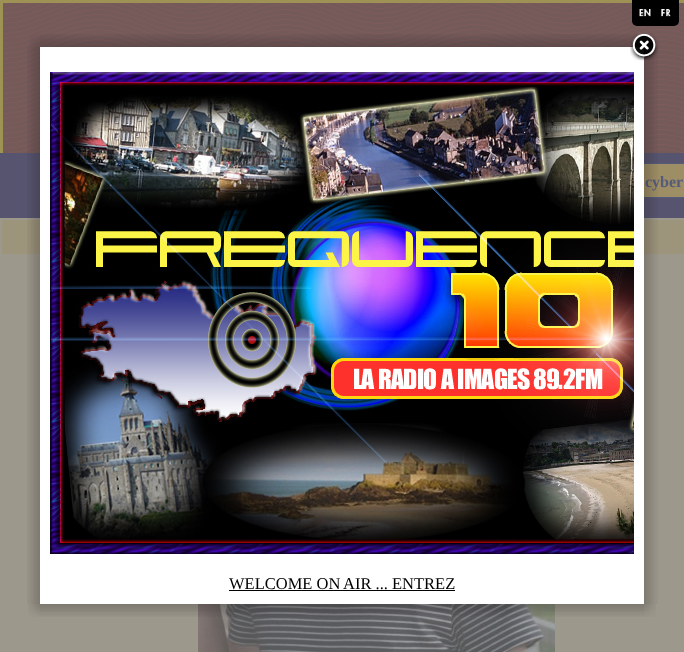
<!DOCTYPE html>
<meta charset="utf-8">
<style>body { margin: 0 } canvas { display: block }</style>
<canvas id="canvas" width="684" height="652"></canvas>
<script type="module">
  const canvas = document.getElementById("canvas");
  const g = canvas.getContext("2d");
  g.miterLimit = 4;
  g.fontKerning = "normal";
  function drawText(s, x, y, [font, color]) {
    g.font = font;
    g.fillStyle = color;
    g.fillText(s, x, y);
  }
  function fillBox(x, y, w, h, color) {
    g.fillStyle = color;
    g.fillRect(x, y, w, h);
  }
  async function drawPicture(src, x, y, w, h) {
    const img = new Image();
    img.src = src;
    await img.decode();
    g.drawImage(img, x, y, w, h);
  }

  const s1 = ["bold 16px Liberation Serif", "#555B7B"];
  const s2 = ["16.5px Liberation Serif", "#000000"];

  fillBox(0, 0, 684, 652, "#57546F");
  await drawPicture("pic3.png", 3, 3, 681, 150);
  fillBox(0, 0, 684, 3, "#9E9355");
  g.fillStyle = "#000000";
  g.beginPath();
  g.roundRect(632, 0, 47, 26, [0, 0, 5, 5]);
  g.fill();
  await drawPicture("pic1.png", 639, 9, 12, 8);
  await drawPicture("pic2.png", 661, 9, 10, 8);
  fillBox(0, 0, 3, 153, "#9E9355");
  fillBox(644, 164, 40, 33, "#9E8E65");
  g.strokeStyle = "#555B7B";
  g.strokeRect(639.5, 163.5, 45, 34);
  drawText("cyber", 645, 187, s1);
  fillBox(0, 218, 684, 434, "#9D988C");
  fillBox(2, 220, 682, 34, "#9D947C");
  await drawPicture("pic4.png", 198, 604, 357, 48);
  fillBox(40, 47, 604, 557, "#FFFFFF");
  await drawPicture("pic5.png", 29, 35, 11, 12);
  await drawPicture("pic6.png", 40, 34, 604, 13);
  await drawPicture("pic8.png", 644, 35, 12, 12);
  await drawPicture("pic11.png", 644, 47, 14, 557);
  await drawPicture("pic7.png", 630, 33, 29, 28);
  await drawPicture("pic9.png", 27, 47, 13, 557);
  await drawPicture("pic10.png", 50, 72, 584, 482);
  drawText("WELCOME ON", 229, 589, s2);
  fillBox(229, 590, 226, 1, "#000000");
  drawText("AIR ... ENTREZ", 343, 589, s2);
  await drawPicture("pic12.png", 28, 604, 12, 13);
  await drawPicture("pic13.png", 40, 604, 604, 13);
  await drawPicture("pic14.png", 644, 604, 12, 13);
</script>
